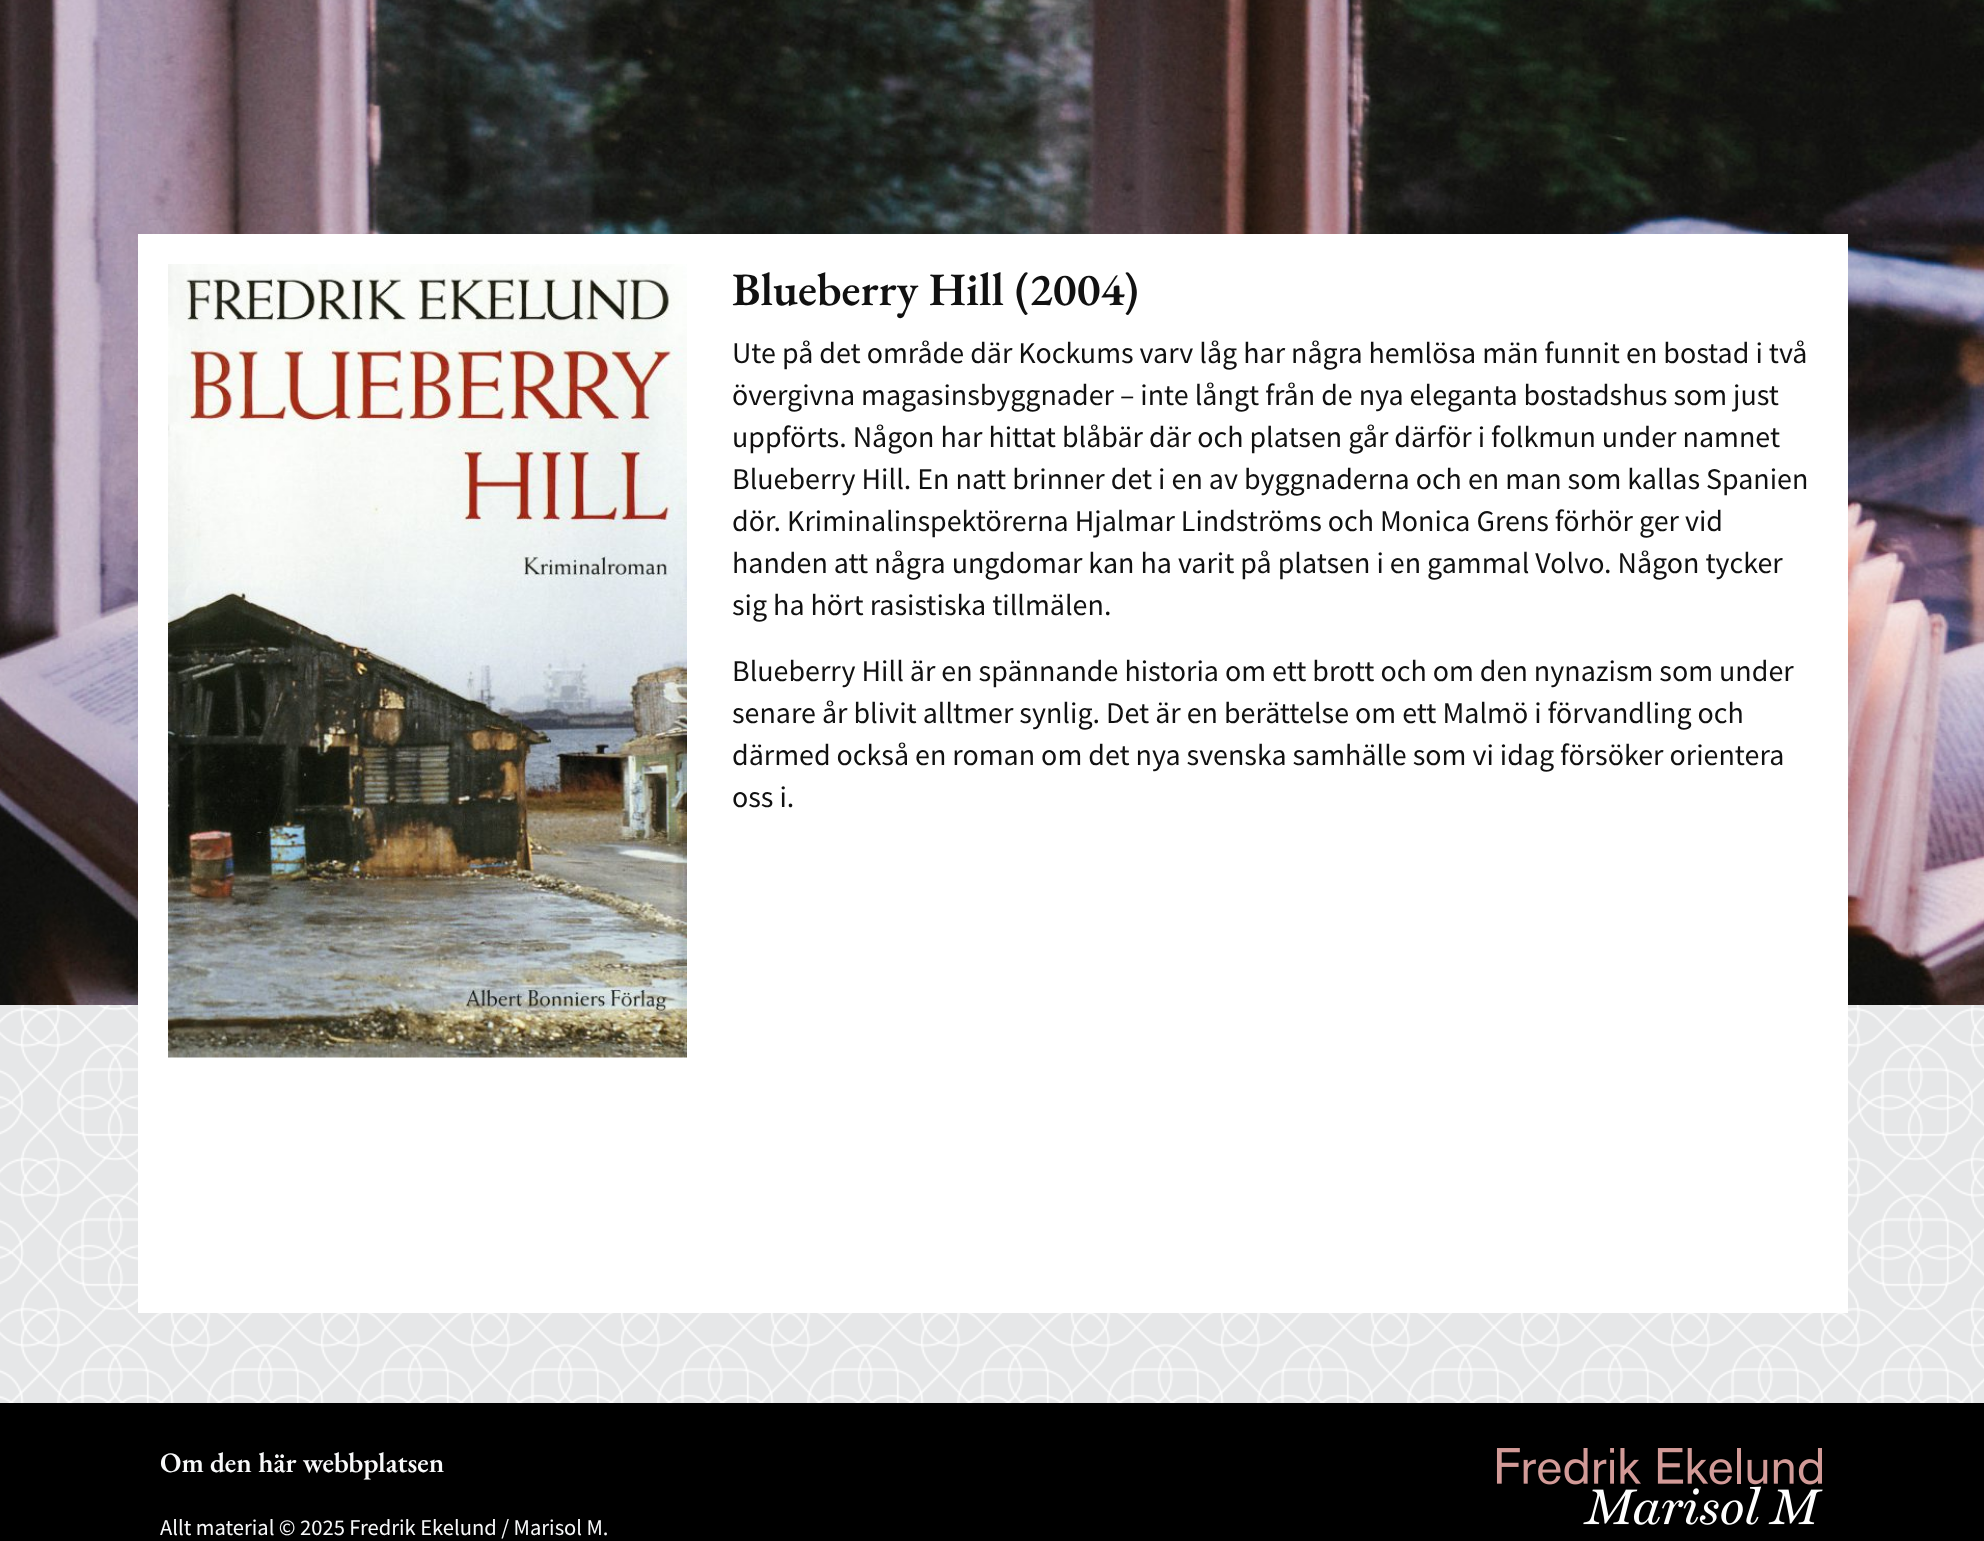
<!DOCTYPE html>
<meta charset="utf-8">
<style>body { margin: 0 } canvas { display: block }</style>
<canvas id="canvas" width="1984" height="1541"></canvas>
<script type="module">
  const canvas = document.getElementById("canvas");
  const g = canvas.getContext("2d");
  g.miterLimit = 4;
  g.fontKerning = "normal";
  function drawText(s, x, y, [font, color]) {
    g.font = font;
    g.fillStyle = color;
    g.fillText(s, x, y);
  }
  function fillBox(x, y, w, h, color) {
    g.fillStyle = color;
    g.fillRect(x, y, w, h);
  }
  async function drawPicture(src, x, y, w, h) {
    const img = new Image();
    img.src = src;
    await img.decode();
    g.drawImage(img, x, y, w, h);
  }

  const s1 = ["600 46.5px EB Garamond", "#111111"];
  const s2 = ["30px Source Sans Pro", "#111111"];
  const s3 = ["600 28.1px EB Garamond", "#F8F9FA"];
  const s4 = ["22.5px Source Sans Pro", "#F8F9FA"];

  fillBox(0, 0, 1984, 1541, "#FFFFFF");
  await drawPicture("pic1.png", 0, 1005, 1984, 398);
  await drawPicture("pic2.png", 0, 0, 1984, 1005);
  fillBox(138, 234, 1710, 1079, "#FFFFFF");
  await drawPicture("pic3.png", 168, 264, 519, 794);
  drawText("Blueberry Hill (2004)", 732, 305, s1);
  drawText("Ute på det område där Kockums varv låg har några hemlösa män funnit en bostad i två", 732, 363, s2);
  drawText("övergivna magasinsbyggnader – inte långt från de nya eleganta bostadshus som just", 732, 405, s2);
  drawText("uppförts. Någon har hittat blåbär där och platsen går därför i folkmun under namnet", 732, 447, s2);
  drawText("Blueberry Hill. En natt brinner det i en av byggnaderna och en man som kallas Spanien", 732, 489, s2);
  drawText("dör. Kriminalinspektörerna Hjalmar Lindströms och Monica Grens förhör ger vid", 732, 531, s2);
  drawText("handen att några ungdomar kan ha varit på platsen i en gammal Volvo. Någon tycker", 732, 573, s2);
  drawText("sig ha hört rasistiska tillmälen.", 732, 615, s2);
  drawText("Blueberry Hill är en spännande historia om ett brott och om den nynazism som under", 732, 681, s2);
  drawText("senare år blivit alltmer synlig. Det är en berättelse om ett Malmö i förvandling och", 732, 723, s2);
  drawText("därmed också en roman om det nya svenska samhälle som vi idag försöker orientera", 732, 765, s2);
  drawText("oss i.", 732, 807, s2);
  fillBox(0, 1403, 1984, 138, "#000000");
  drawText("Om den här webbplatsen", 160, 1472, s3);
  drawText("Allt material © 2025 Fredrik Ekelund / Marisol M.", 160, 1535, s4);
  await drawPicture("pic4.png", 1496, 1448, 327, 77);
</script>
